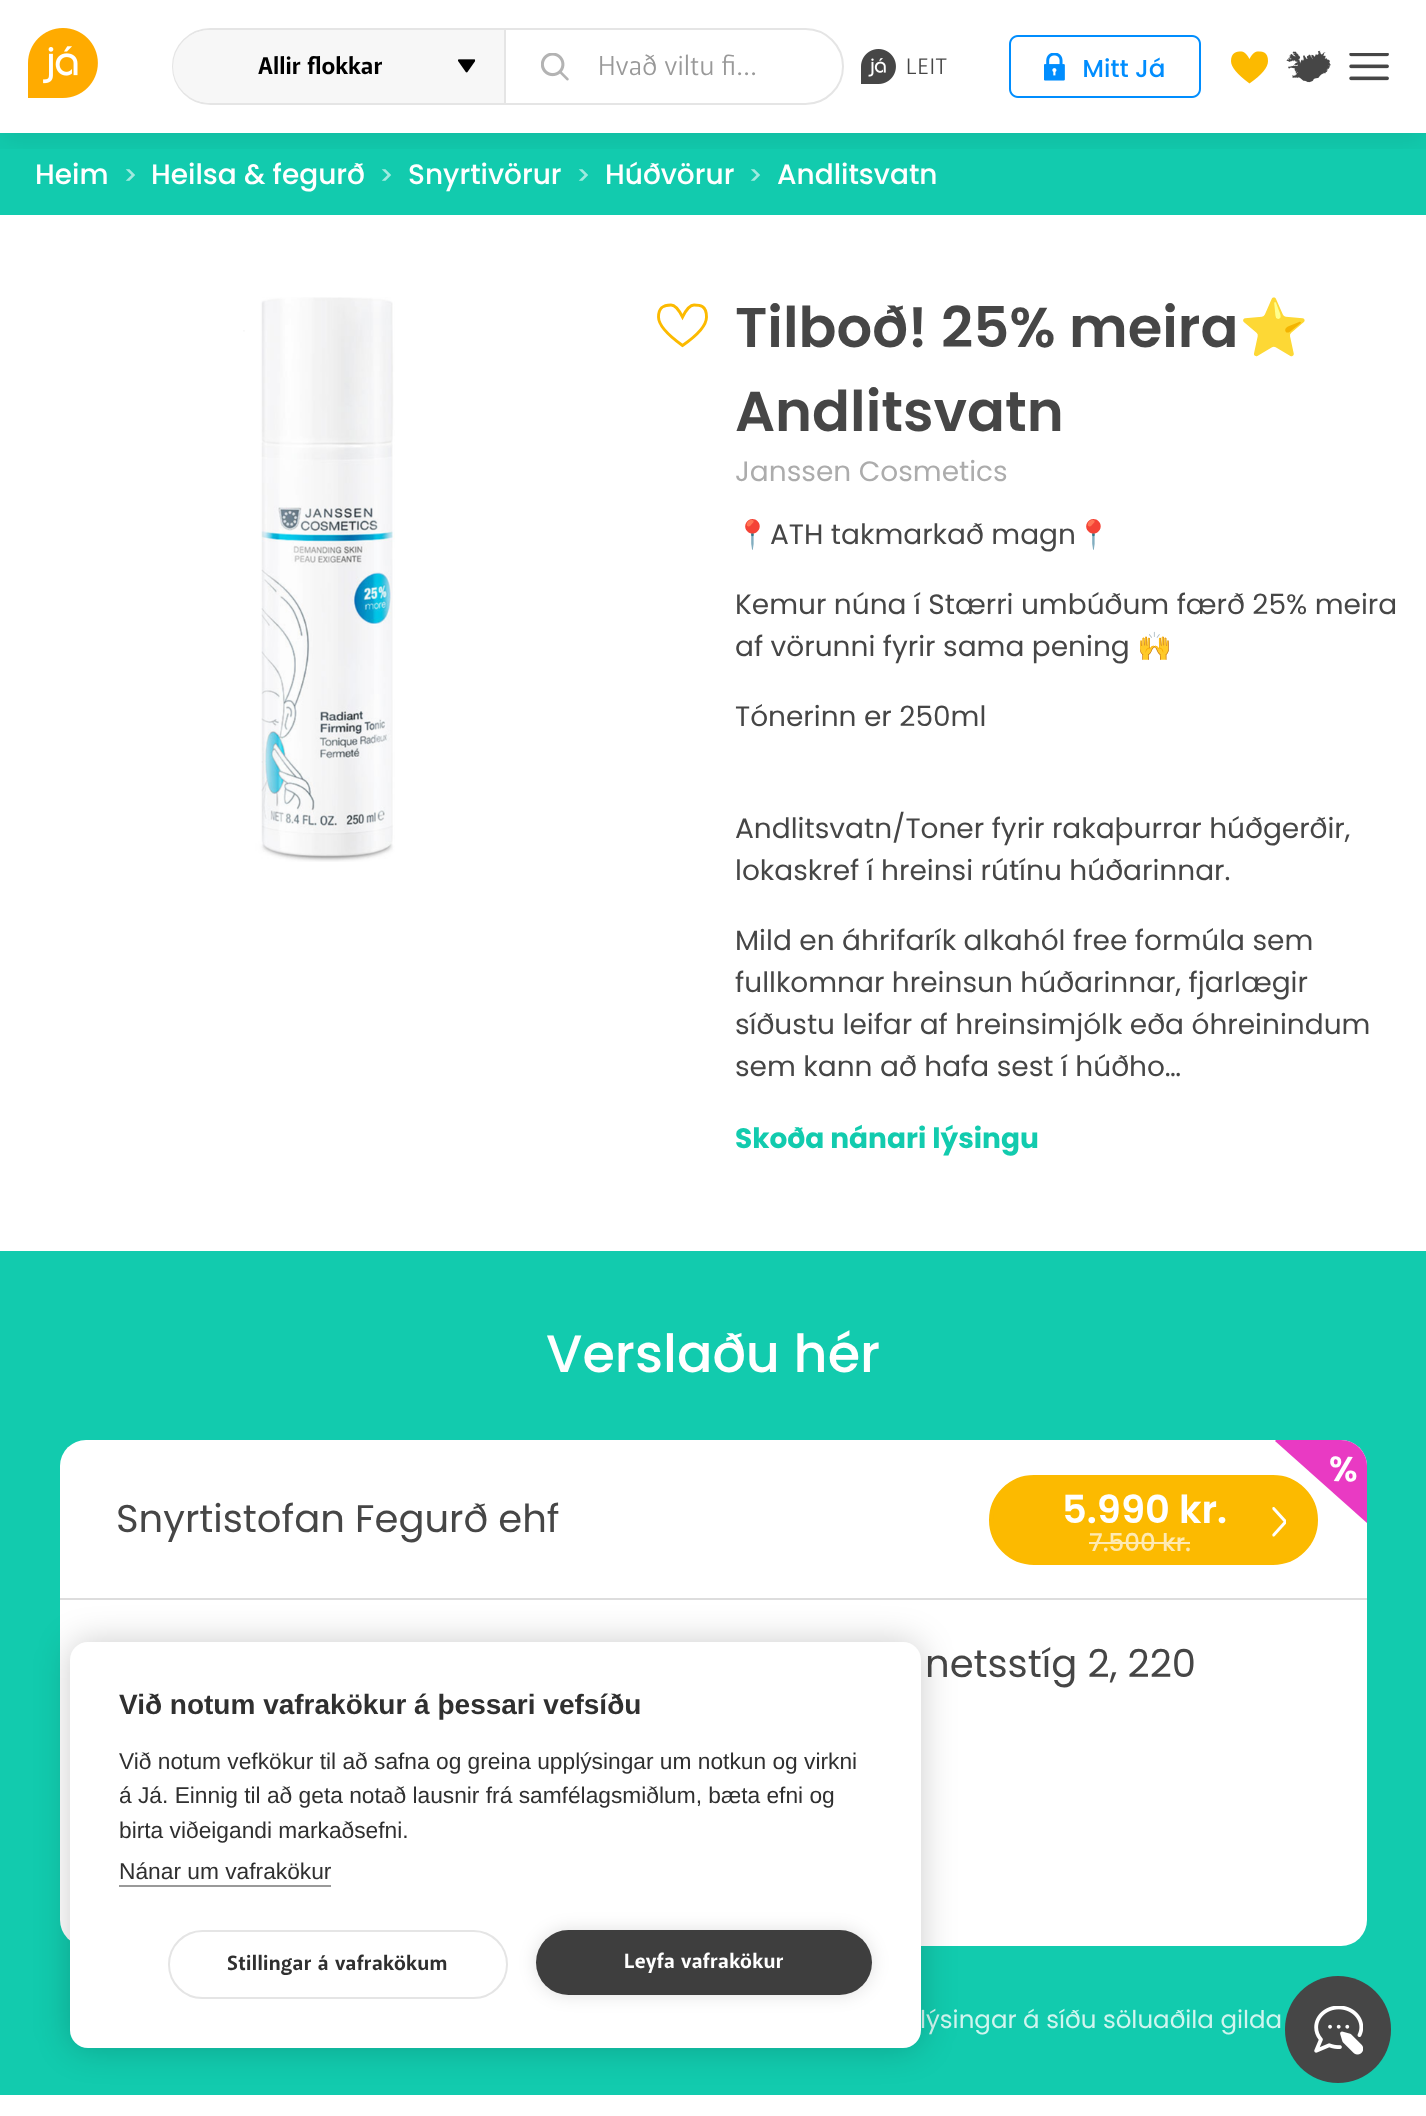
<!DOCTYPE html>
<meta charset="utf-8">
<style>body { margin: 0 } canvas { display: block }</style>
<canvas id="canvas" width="1426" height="2116"></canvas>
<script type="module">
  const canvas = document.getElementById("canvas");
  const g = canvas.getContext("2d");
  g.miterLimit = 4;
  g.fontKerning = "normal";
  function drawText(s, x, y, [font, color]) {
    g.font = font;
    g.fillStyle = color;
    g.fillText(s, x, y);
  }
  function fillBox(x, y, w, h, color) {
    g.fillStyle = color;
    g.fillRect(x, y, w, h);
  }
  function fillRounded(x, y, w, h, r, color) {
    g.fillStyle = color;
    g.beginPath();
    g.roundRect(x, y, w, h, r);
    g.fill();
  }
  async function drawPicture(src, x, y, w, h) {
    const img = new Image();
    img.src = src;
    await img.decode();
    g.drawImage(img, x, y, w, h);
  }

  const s1 = ["600 24.5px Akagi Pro", "#000000"];
  const s2 = ["28px Akagi Pro", "#999999"];
  const s3 = ["22.75px Akagi Pro", "#464646"];
  const s4 = ["500 28px Poppins", "#FFFFFF"];
  const s5 = ["500 25px Poppins", "#A0EADF"];
  const s6 = ["600 56px Poppins", "#464646"];
  const s7 = ["bold 56px Noto Color Emoji", "#464646"];
  const s8 = ["28px Poppins", "#ACACAC"];
  const s9 = ["28px Noto Color Emoji", "#464646"];
  const s10 = ["28px Poppins", "#464646"];
  const s11 = ["bold 28px Poppins", "#12CBAE"];
  const s12 = ["500 52.5px Poppins", "#FFFFFF"];
  const s13 = ["38.5px Poppins", "#464646"];
  const s14 = ["600 38.5px Poppins", "#FFFFFF"];
  const s15 = ["500 24.5px Poppins", "#FEEAB3"];
  const s16 = ["24.5px Poppins", "#D0F5EF"];
  const s17 = ["bold 28px Liberation Sans", "#303030"];
  const s18 = ["22.75px Liberation Sans", "#303030"];
  const s19 = ["600 21px Akagi Pro", "#303030"];
  const s20 = ["600 21px Akagi Pro", "#FFFFFF"];

  fillBox(0, 0, 1426, 2116, "#FFFFFF");
  fillBox(0, 133, 1426, 82, "#12CBAE");
  g.save();
  g.beginPath();
  g.rect(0, 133, 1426, 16);
  g.clip();
  g.fillStyle = "rgba(0, 0, 0, 0.07)";
  g.filter = "blur(13px)";
  g.beginPath();
  g.rect(0, 9, 1426, 133);
  g.fill();
  g.filter = "none";
  g.restore();
  await drawPicture("pic1.png", 28, 28, 70, 70);
  g.beginPath();
  g.roundRect(173, 29, 670, 75, 37.5);
  g.strokeStyle = "#E5E5E5";
  g.lineWidth = 2;
  g.stroke();
  g.fillStyle = "#F7F7F7";
  g.beginPath();
  g.roundRect(173, 30, 333, 73, [36.5, 0, 0, 36.5]);
  g.fill();
  fillBox(504, 30, 2, 73, "#E5E5E5");
  drawText("Allir flokkar", 258, 74, s1);
  await drawPicture("pic2.png", 458, 59, 18, 14);
  await drawPicture("pic3.png", 541, 53, 28, 28);
  drawText("Hvað viltu fi…", 598, 75, s2);
  await drawPicture("pic4.png", 861, 49, 35, 35);
  g.letterSpacing = "1px";
  drawText("LEIT", 906, 74, s3);
  await drawPicture("pic5.png", 1009, 35, 192, 63);
  await drawPicture("pic6.png", 1231, 51, 37, 33);
  await drawPicture("pic7.png", 1286, 50, 45, 33);
  await drawPicture("pic8.png", 1349, 53, 40, 28);
  g.letterSpacing = "0px";
  drawText("Heim", 35, 184, s4);
  drawText(">", 123, 184, s5);
  drawText("Heilsa & fegurð", 151, 184, s4);
  drawText(">", 379, 184, s5);
  drawText("Snyrtivörur", 408, 184, s4);
  drawText(">", 576, 184, s5);
  drawText("Húðvörur", 605, 184, s4);
  drawText(">", 748, 184, s5);
  drawText("Andlitsvatn", 777, 184, s4);
  await drawPicture("pic9.png", 243, 297, 152, 565);
  g.beginPath();
  g.moveTo(682.5, 345.5);
  g.bezierCurveTo(666.5, 334, 658.5, 324, 658.5, 317);
  g.bezierCurveTo(658.5, 306, 665.5, 305, 671, 305);
  g.bezierCurveTo(674.5, 305, 678.5, 309, 682.5, 317);
  g.bezierCurveTo(686.5, 309, 690, 305, 694, 305);
  g.bezierCurveTo(699.5, 305, 706.5, 305, 706.5, 317);
  g.bezierCurveTo(706.5, 325, 698.5, 334.5, 682.5, 345.5);
  g.closePath();
  g.strokeStyle = "#FCBA00";
  g.lineWidth = 2.9;
  g.stroke();
  drawText("Tilboð! 25% meira", 735, 347, s6);
  drawText("⭐️", 1239, 347, s7);
  drawText("Andlitsvatn", 735, 431, s6);
  drawText("Janssen Cosmetics", 735, 481, s8);
  drawText("📍", 735, 544, s9);
  drawText("ATH takmarkað magn", 770, 544, s10);
  drawText("📍", 1076, 544, s9);
  drawText("Kemur núna í Stærri umbúðum færð 25% meira", 735, 614, s10);
  drawText("af vörunni fyrir sama pening", 735, 656, s10);
  drawText("🙌", 1137, 656, s9);
  drawText("Tónerinn er 250ml", 735, 726, s10);
  drawText("Andlitsvatn/Toner fyrir rakaþurrar húðgerðir,", 735, 838, s10);
  drawText("lokaskref í hreinsi rútínu húðarinnar.", 735, 880, s10);
  drawText("Mild en áhrifarík alkahól free formúla sem", 735, 950, s10);
  drawText("fullkomnar hreinsun húðarinnar, fjarlægir", 735, 992, s10);
  drawText("síðustu leifar af hreinsimjólk eða óhreinindum", 735, 1034, s10);
  drawText("sem kann að hafa sest í húðho…", 735, 1076, s10);
  drawText("Skoða nánari lýsingu", 735, 1148, s11);
  fillBox(0, 1251, 1426, 844, "#12CBAE");
  drawText("Verslaðu hér", 546, 1372, s12);
  fillRounded(60, 1440, 1307, 506, 26, "#FFFFFF");
  g.fillStyle = "#FCBA00";
  g.beginPath();
  g.roundRect(991, 1477, 325, 86, 43);
  g.fill();
  g.lineWidth = 4;
  g.stroke();
  await drawPicture("pic10.png", 1272, 1507, 14, 30);
  g.fillStyle = "#E93AC3";
  g.beginPath();
  g.moveTo(1367, 1523);
  g.lineTo(1275, 1441);
  g.lineTo(1276, 1440);
  g.lineTo(1341, 1440);
  g.bezierCurveTo(1355, 1440, 1367, 1452, 1367, 1466);
  g.closePath();
  g.fill();
  g.font = "600 35px Poppins";
  g.fillStyle = "#FFFFFF";
  g.save();
  g.translate(1358, 1457);
  g.rotate(-179 * Math.PI / 180);
  g.fillText("%", 0, 0);
  g.restore();
  drawText("Snyrtistofan Fegurð ehf", 116, 1532, s13);
  drawText("5.990 kr.", 1062, 1523, s14);
  drawText("7.500 kr.", 1089, 1551, s15);
  fillBox(1089, 1542, 101, 2, "#FEEAB3");
  fillBox(60, 1598, 1307, 2, "#DDDDDD");
  drawText("netsstíg 2, 220", 925, 1677, s13);
  drawText("lýsingar á síðu söluaðila gilda", 920, 2028, s16);
  fillRounded(1285, 1976, 106, 107, 53, "#464646");
  await drawPicture("pic11.png", 1314, 2006, 49, 49);
  g.fillStyle = "rgba(0, 0, 0, 0.2)";
  g.filter = "blur(17.5px)";
  g.beginPath();
  g.roundRect(70, 1642, 851, 406, 18);
  g.fill();
  g.filter = "none";
  fillRounded(70, 1642, 851, 406, 18, "#FFFFFF");
  drawText("Við notum vafrakökur á þessari vefsíðu", 119, 1714, s17);
  drawText("Við notum vefkökur til að safna og greina upplýsingar um notkun og virkni", 119, 1769, s18);
  drawText("á Já. Einnig til að geta notað lausnir frá samfélagsmiðlum, bæta efni og", 119, 1803, s18);
  drawText("birta viðeigandi markaðsefni.", 119, 1838, s18);
  drawText("Nánar um vafrakökur", 119, 1879, s18);
  fillBox(119, 1885, 212, 2, "#999999");
  g.beginPath();
  g.roundRect(169, 1931, 338, 67, 33.5);
  g.strokeStyle = "#E5E5E5";
  g.lineWidth = 2;
  g.stroke();
  g.letterSpacing = "0.35px";
  drawText("Stillingar á vafrakökum", 227, 1970, s19);
  g.fillStyle = "rgba(0, 0, 0, 0.12)";
  g.filter = "blur(9px)";
  g.beginPath();
  g.roundRect(536, 1930, 336, 65, 32.5);
  g.fill();
  g.filter = "none";
  fillRounded(536, 1930, 336, 65, 32.5, "#3E3E3E");
  drawText("Leyfa vafrakökur", 624, 1968, s20);
</script>
